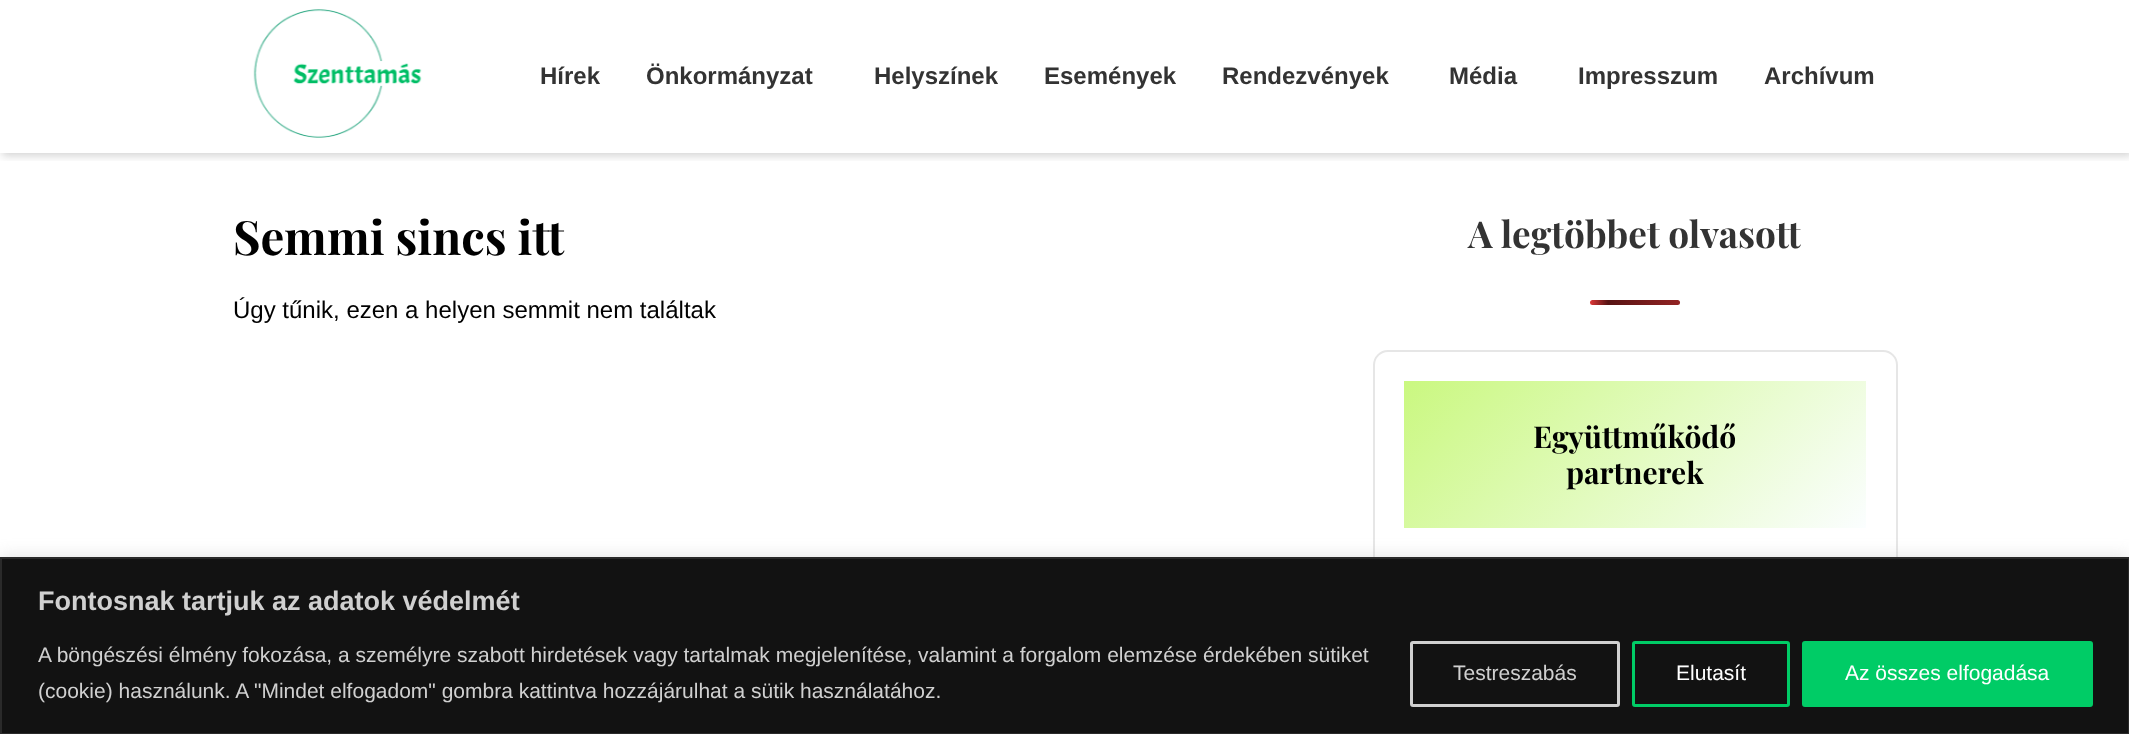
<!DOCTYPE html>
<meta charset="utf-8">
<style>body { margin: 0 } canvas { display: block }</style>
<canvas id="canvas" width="2129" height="734"></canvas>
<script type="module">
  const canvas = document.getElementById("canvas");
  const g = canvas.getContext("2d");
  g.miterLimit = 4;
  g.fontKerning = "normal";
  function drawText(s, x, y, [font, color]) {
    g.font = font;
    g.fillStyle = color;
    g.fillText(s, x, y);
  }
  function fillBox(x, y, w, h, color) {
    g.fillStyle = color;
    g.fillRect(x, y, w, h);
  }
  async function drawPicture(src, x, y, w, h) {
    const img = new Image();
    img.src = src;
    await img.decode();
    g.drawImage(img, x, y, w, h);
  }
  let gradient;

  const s1 = ["bold 24px Liberation Sans", "#333333"];
  const s2 = ["bold 47.25px Playfair Display", "#000000"];
  const s3 = ["24px Liberation Sans", "#000000"];
  const s4 = ["bold 37px Playfair Display", "#333333"];
  const s5 = ["bold 30px Playfair Display", "#000000"];
  const s6 = ["bold 27px Liberation Sans", "#D0D0D0"];
  const s7 = ["21px Liberation Sans", "#D0D0D0"];
  const s8 = ["21px Liberation Sans", "#FFFFFF"];

  fillBox(0, 0, 2129, 734, "#FFFFFF");
  g.save();
  g.beginPath();
  g.rect(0, 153, 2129, 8);
  g.clip();
  g.fillStyle = "rgba(0, 0, 0, 0.17)";
  g.filter = "blur(4px)";
  g.beginPath();
  g.rect(2, 3, 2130, 153);
  g.fill();
  g.filter = "none";
  g.restore();
  await drawPicture("pic1.png", 253, 9, 169, 129);
  drawText("Hírek", 540, 84, s1);
  drawText("Önkormányzat", 646, 84, s1);
  drawText("Helyszínek", 874, 84, s1);
  drawText("Események", 1044, 84, s1);
  drawText("Rendezvények", 1222, 84, s1);
  drawText("Média", 1449, 84, s1);
  drawText("Impresszum", 1578, 84, s1);
  drawText("Archívum", 1764, 84, s1);
  drawText("Semmi sincs itt", 233, 255, s2);
  drawText("Úgy tűnik, ezen a helyen semmit nem találtak", 233, 318, s3);
  drawText("A legtöbbet olvasott", 1468, 248, s4);
  gradient = g.createLinearGradient(1590, 302, 1770, 302);
  gradient.addColorStop(0, "#DD3737");
  gradient.addColorStop(0.1, "#571313");
  gradient.addColorStop(1, "#DD3737");
  g.fillStyle = gradient;
  g.beginPath();
  g.roundRect(1590, 300, 90, 5, 2.5);
  g.fill();
  g.beginPath();
  g.roundRect(1374, 351, 523, 230, 14);
  g.strokeStyle = "#E6E6E6";
  g.lineWidth = 2;
  g.stroke();
  gradient = g.createLinearGradient(1483, 302, 1787, 607);
  gradient.addColorStop(0, "#CAF880");
  gradient.addColorStop(1, "#FBFEFF");
  g.fillStyle = gradient;
  g.fillRect(1404, 381, 462, 147);
  drawText("Együttműködő", 1533, 448, s5);
  drawText("partnerek", 1566, 484, s5);
  g.fillStyle = "rgba(172, 171, 171, 0.3)";
  g.filter = "blur(7.5px)";
  g.beginPath();
  g.rect(0, 555, 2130, 179);
  g.fill();
  g.filter = "none";
  g.fillStyle = "#121212";
  g.beginPath();
  g.rect(1, 558, 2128, 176);
  g.fill();
  g.strokeStyle = "#2A2A2A";
  g.stroke();
  drawText("Fontosnak tartjuk az adatok védelmét", 38, 610, s6);
  drawText("A böngészési élmény fokozása, a személyre szabott hirdetések vagy tartalmak megjelenítése, valamint a forgalom elemzése érdekében sütiket", 38, 662, s7);
  drawText("(cookie) használunk. A \"Mindet elfogadom\" gombra kattintva hozzájárulhat a sütik használatához.", 38, 698, s7);
  g.beginPath();
  g.roundRect(1411.5, 642.5, 207, 63, 1.5);
  g.strokeStyle = "#D0D0D0";
  g.lineWidth = 3;
  g.stroke();
  drawText("Testreszabás", 1453, 680, s7);
  g.beginPath();
  g.roundRect(1633.5, 642.5, 155, 63, 1.5);
  g.strokeStyle = "#00CC66";
  g.stroke();
  drawText("Elutasít", 1676, 680, s8);
  g.fillStyle = "#00CC66";
  g.beginPath();
  g.roundRect(1803.5, 642.5, 288, 63, 1.5);
  g.fill();
  g.stroke();
  drawText("Az összes elfogadása", 1845, 680, s8);
</script>
